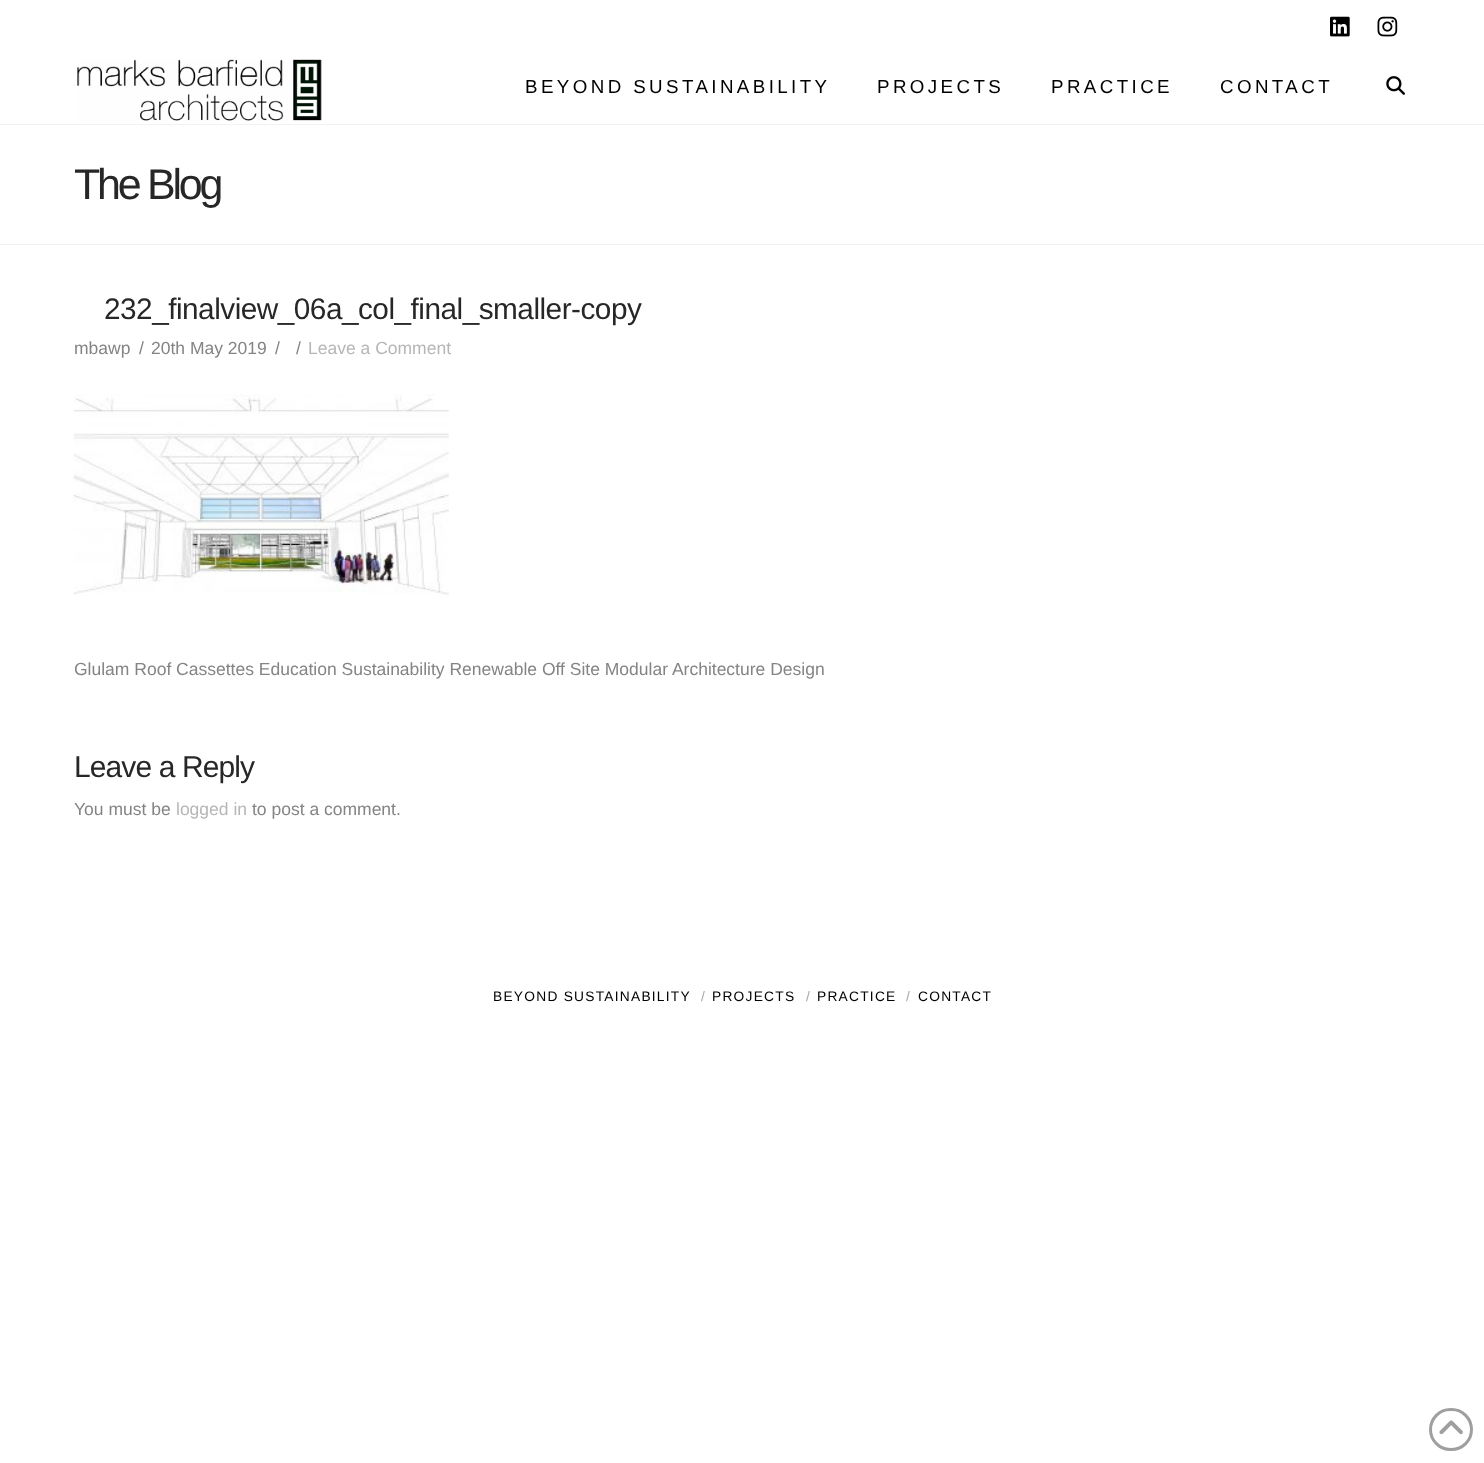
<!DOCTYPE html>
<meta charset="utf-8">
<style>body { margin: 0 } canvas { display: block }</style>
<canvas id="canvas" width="1484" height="1463"></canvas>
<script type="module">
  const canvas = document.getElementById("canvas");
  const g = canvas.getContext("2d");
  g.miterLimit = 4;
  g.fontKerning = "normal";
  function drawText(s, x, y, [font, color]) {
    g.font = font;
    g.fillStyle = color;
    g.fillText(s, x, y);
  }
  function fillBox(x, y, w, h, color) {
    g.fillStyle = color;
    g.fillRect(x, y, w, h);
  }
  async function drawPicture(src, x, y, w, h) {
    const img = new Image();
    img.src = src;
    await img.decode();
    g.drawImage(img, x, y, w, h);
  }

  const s1 = ["18.75px Liberation Sans", "#000000"];
  const s2 = ["43px Liberation Sans", "#272727"];
  const s3 = ["29.75px Liberation Sans", "#272727"];
  const s4 = ["17.5px Liberation Sans", "#848484"];
  const s5 = ["17.5px Liberation Sans", "#B6B6B6"];
  const s6 = ["30px Liberation Sans", "#272727"];
  const s7 = ["13.75px Liberation Sans", "#000000"];
  const s8 = ["13.75px Liberation Sans", "#A6A6A6"];

  fillBox(0, 0, 1484, 1463, "#FFFFFF");
  await drawPicture("pic1.png", 1330, 16, 20, 21);
  await drawPicture("pic2.png", 1377, 16, 21, 21);
  await drawPicture("pic3.png", 77, 59, 245, 62);
  g.letterSpacing = "3.4px";
  drawText("BEYOND SUSTAINABILITY", 525, 93, s1);
  drawText("PROJECTS", 877, 93, s1);
  drawText("PRACTICE", 1051, 93, s1);
  drawText("CONTACT", 1220, 93, s1);
  await drawPicture("pic4.png", 1386, 76, 19, 19);
  fillBox(0, 124, 1484, 1, "#F2F2F2");
  fillBox(0, 244, 1484, 1, "#F2F2F2");
  g.letterSpacing = "-3.25px";
  drawText("The Blog", 74, 199, s2);
  g.letterSpacing = "-0.5px";
  drawText("232_finalview_06a_col_final_smaller-copy", 104, 319, s3);
  g.letterSpacing = "0px";
  drawText("mbawp", 74, 354, s4);
  drawText("/", 139, 354, s4);
  drawText("20th May 2019", 151, 354, s4);
  drawText("/", 275, 354, s4);
  drawText("/", 296, 354, s4);
  drawText("Leave a Comment", 308, 354, s5);
  await drawPicture("pic5.png", 73, 394, 376, 202);
  drawText("Glulam Roof Cassettes Education Sustainability Renewable Off Site Modular Architecture Design", 74, 675, s4);
  g.letterSpacing = "-0.9px";
  drawText("Leave a Reply", 74, 777, s6);
  g.letterSpacing = "0px";
  drawText("You must be", 74, 815, s4);
  drawText("logged in", 176, 815, s5);
  drawText("to post a comment.", 252, 815, s4);
  g.letterSpacing = "1.25px";
  drawText("BEYOND SUSTAINABILITY", 493, 1001, s7);
  g.letterSpacing = "0px";
  drawText("/", 701, 1001, s8);
  g.letterSpacing = "1.25px";
  drawText("PROJECTS", 712, 1001, s7);
  g.letterSpacing = "0px";
  drawText("/", 806, 1001, s8);
  g.letterSpacing = "1.25px";
  drawText("PRACTICE", 817, 1001, s7);
  g.letterSpacing = "0px";
  drawText("/", 906, 1001, s8);
  g.letterSpacing = "1.25px";
  drawText("CONTACT", 918, 1001, s7);
  g.beginPath();
  g.roundRect(1430.5, 1409.5, 41, 40, 20);
  g.strokeStyle = "#9F9F9F";
  g.lineWidth = 3;
  g.stroke();
  await drawPicture("pic6.png", 1439, 1420, 24, 15);
</script>
